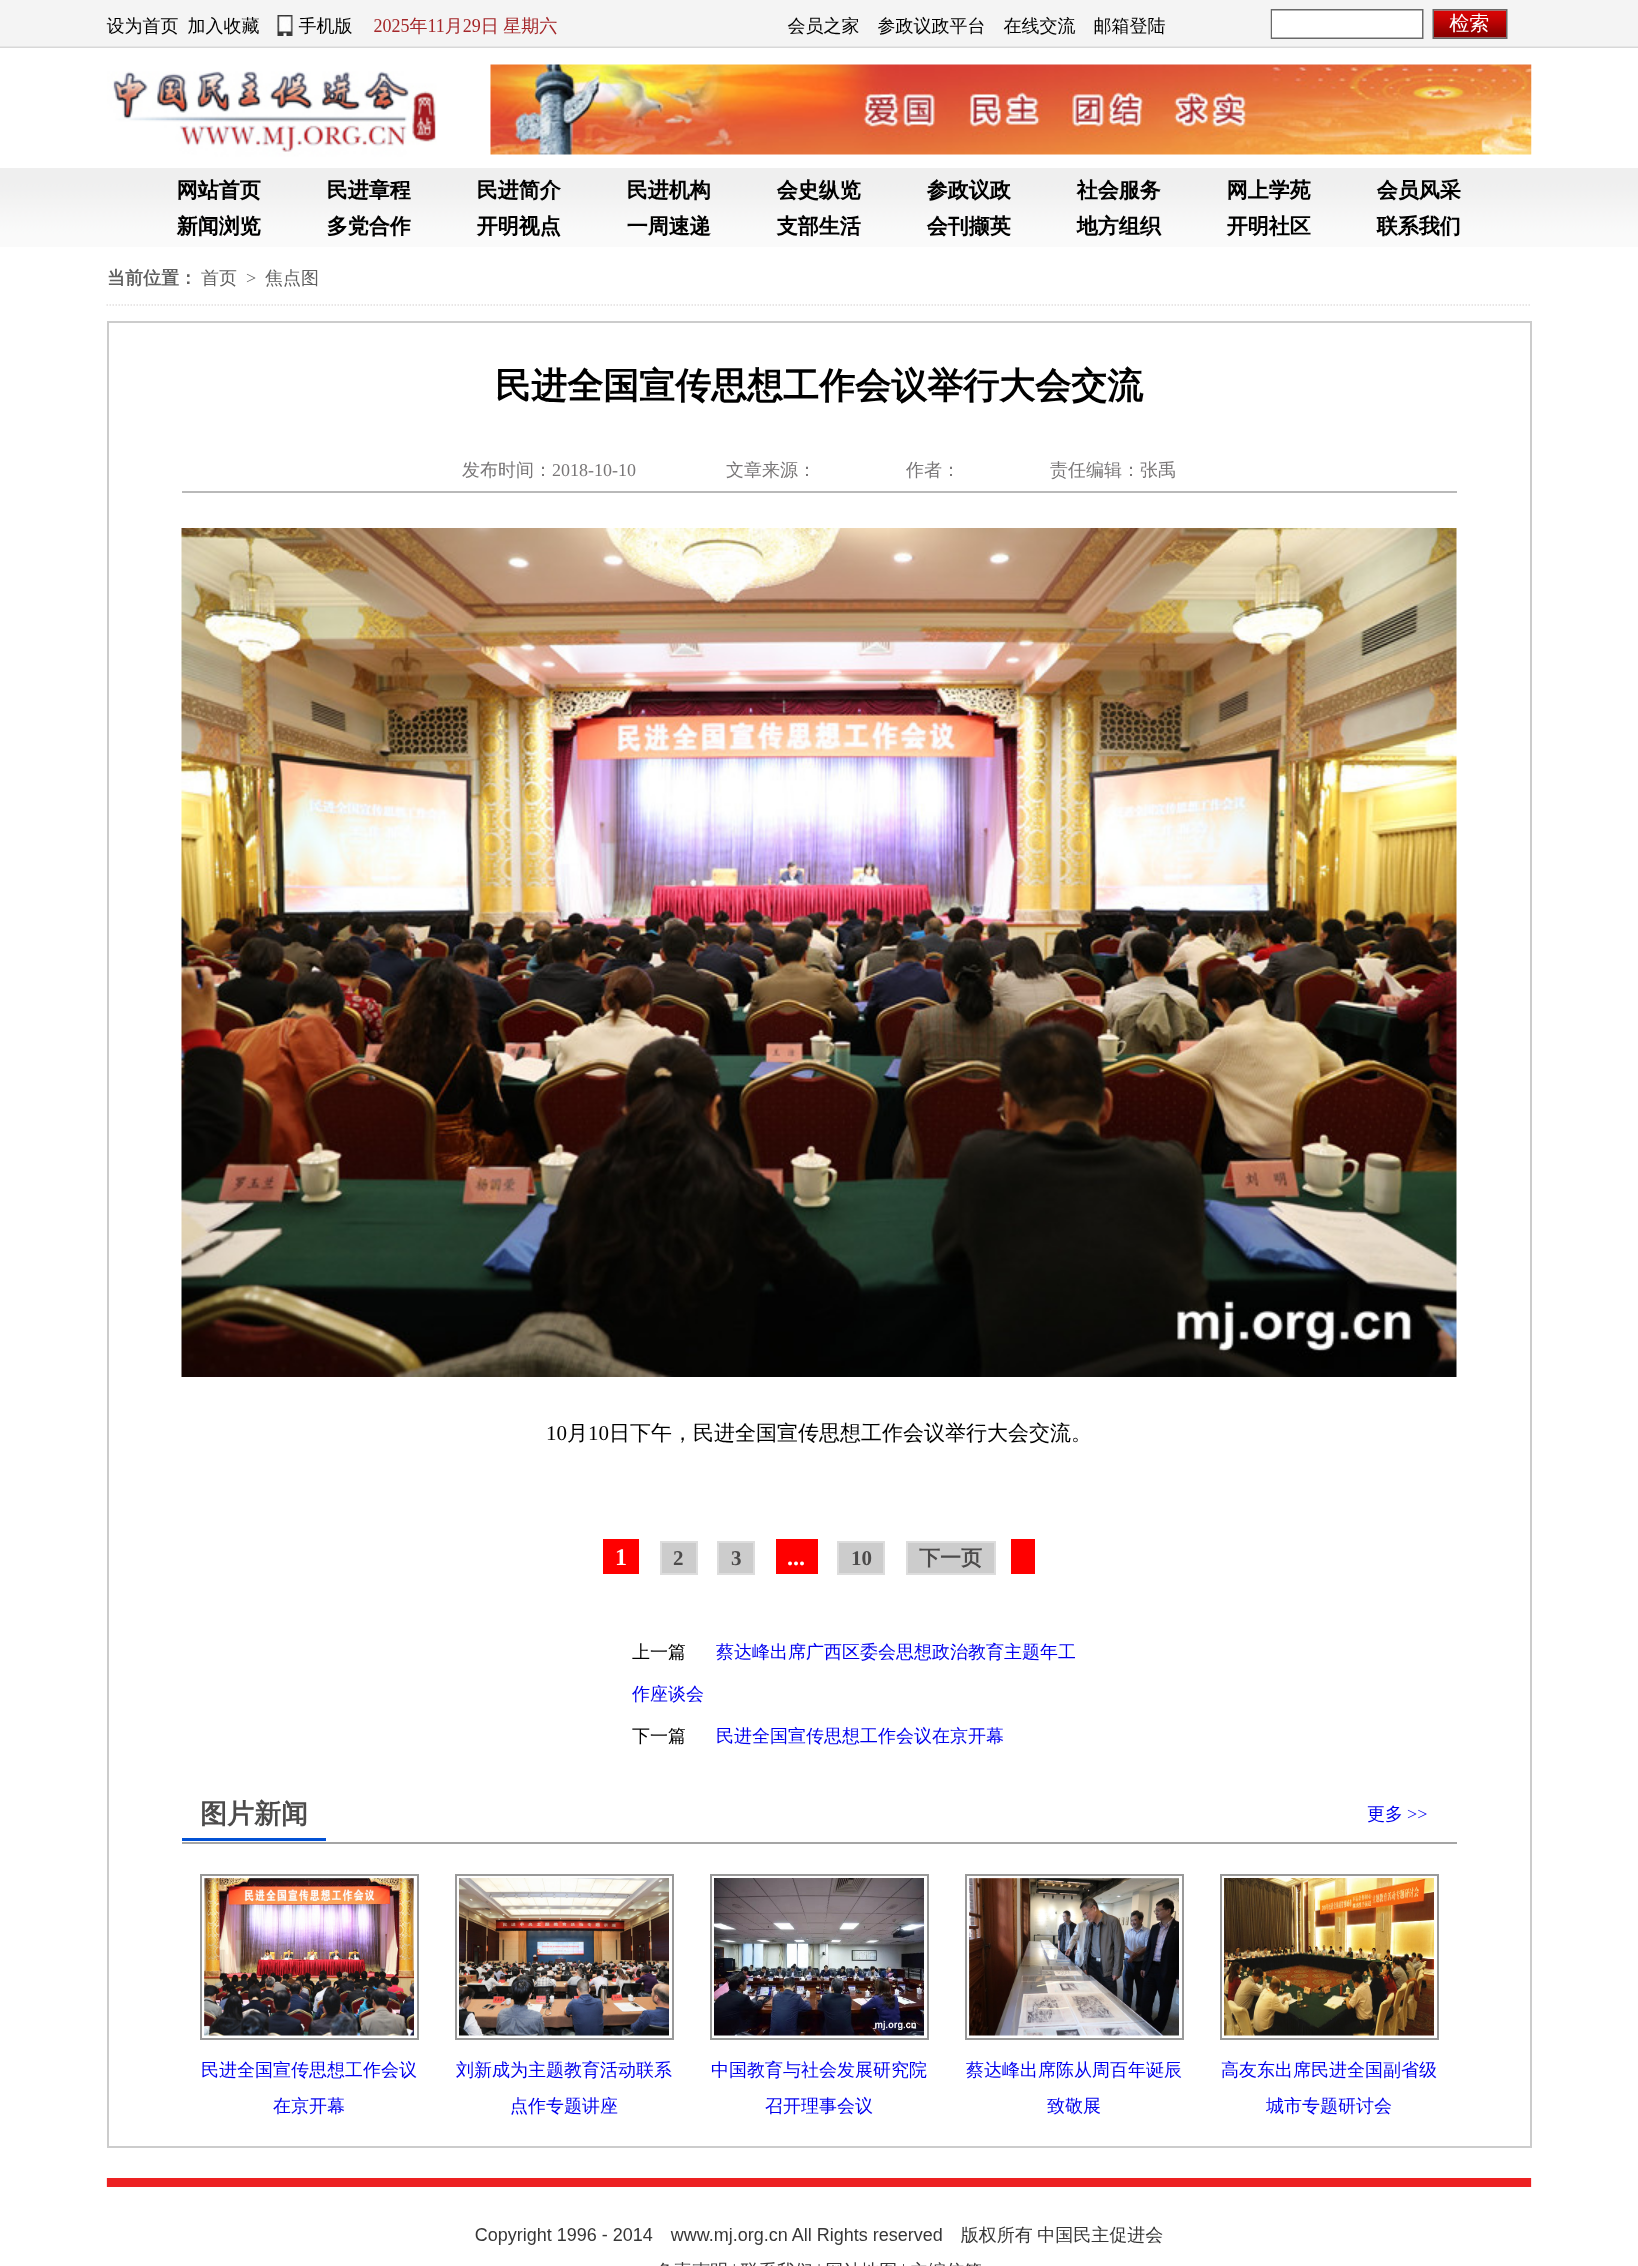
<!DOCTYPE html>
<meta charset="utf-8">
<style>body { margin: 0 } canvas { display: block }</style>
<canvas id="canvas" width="1638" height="2266"></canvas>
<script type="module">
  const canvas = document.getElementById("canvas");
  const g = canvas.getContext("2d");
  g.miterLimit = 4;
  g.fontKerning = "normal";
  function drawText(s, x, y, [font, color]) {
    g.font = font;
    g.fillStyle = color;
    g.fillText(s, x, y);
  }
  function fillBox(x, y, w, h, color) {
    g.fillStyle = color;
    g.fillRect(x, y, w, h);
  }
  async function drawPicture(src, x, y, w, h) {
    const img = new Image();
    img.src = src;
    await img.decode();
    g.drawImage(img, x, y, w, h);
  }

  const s1 = ["bold 18px WenQuanYi Zen Hei", "#606060"];
  const s2 = ["500 18px WenQuanYi Zen Hei", "#606060"];
  const s3 = ["18px Liberation Serif", "#606060"];
  const s4 = ["bold 36px WenQuanYi Zen Hei", "#000000"];
  const s5 = ["500 18px WenQuanYi Zen Hei", "#787677"];
  const s6 = ["18px Liberation Serif", "#787677"];
  const s7 = ["21px Liberation Serif", "#000000"];
  const s8 = ["500 21px WenQuanYi Zen Hei", "#000000"];
  const s9 = ["bold 24px Liberation Serif", "#FFFFFF"];
  const s10 = ["bold 21px Liberation Serif", "#4C4B4B"];
  const s11 = ["bold 21px WenQuanYi Zen Hei", "#4C4B4B"];
  const s12 = ["500 18px WenQuanYi Zen Hei", "#000000"];
  const s13 = ["500 18px WenQuanYi Zen Hei", "#0000EE"];
  const s14 = ["bold 27px WenQuanYi Zen Hei", "#4C4B4B"];
  const s15 = ["18px Liberation Serif", "#0000EE"];

  fillBox(0, 0, 1638, 2266, "#FFFFFF");
  await drawPicture("pic1.png", 0, 0, 1638, 247);
  g.beginPath();
  g.moveTo(106.5, 305);
  g.lineTo(1531.5, 305);
  g.strokeStyle = "#E2E0E0";
  g.lineWidth = 1.5;
  g.setLineDash([1.5, 1.5]);
  g.stroke();
  drawText("当前位置：", 107, 284, s1);
  drawText("首页", 201, 284, s2);
  drawText(">", 246, 284, s3);
  drawText("焦点图", 265, 284, s2);
  g.strokeStyle = "#CCCCCC";
  g.lineWidth = 2;
  g.setLineDash([]);
  g.strokeRect(108, 322, 1423, 1825);
  drawText("民进全国宣传思想工作会议举行大会交流", 495, 398, s4);
  fillBox(182, 491, 1275, 2, "#B9B9B9");
  drawText("发布时间：", 462, 476, s5);
  drawText("2018-10-10", 552, 476, s6);
  drawText("文章来源：　　　　　作者：", 726, 476, s5);
  drawText("责任编辑：张禹", 1050, 476, s5);
  await drawPicture("pic2.png", 181, 528, 1276, 849);
  drawText("10", 546, 1440, s7);
  drawText("月", 567, 1440, s8);
  drawText("10", 588, 1440, s7);
  drawText("日下午，民进全国宣传思想工作会议举行大会交流。", 609, 1440, s8);
  fillBox(603, 1539, 36, 35, "#FF0000");
  drawText("1", 615, 1565, s9);
  g.fillStyle = "#CCCCCC";
  g.beginPath();
  g.rect(661, 1542, 36, 32);
  g.fill();
  g.strokeStyle = "#DDDDDD";
  g.stroke();
  drawText("2", 673, 1565, s10);
  g.fillStyle = "#CCCCCC";
  g.beginPath();
  g.rect(718, 1542, 36, 32);
  g.fill();
  g.stroke();
  drawText("3", 731, 1565, s10);
  fillBox(776, 1539, 42, 35, "#FF0000");
  drawText("...", 787, 1565, s9);
  g.fillStyle = "#CCCCCC";
  g.beginPath();
  g.rect(838, 1542, 46, 32);
  g.fill();
  g.stroke();
  drawText("10", 851, 1565, s10);
  g.fillStyle = "#CCCCCC";
  g.beginPath();
  g.rect(907, 1542, 88, 32);
  g.fill();
  g.stroke();
  drawText("下一页", 919, 1565, s11);
  fillBox(1011, 1539, 24, 35, "#FF0000");
  drawText("上一篇", 632, 1658, s12);
  drawText("蔡达峰出席广西区委会思想政治教育主题年工", 716, 1658, s13);
  drawText("作座谈会", 632, 1700, s13);
  drawText("下一篇", 632, 1742, s12);
  drawText("民进全国宣传思想工作会议在京开幕", 716, 1742, s13);
  fillBox(182, 1842, 1275, 2, "#A5A5A5");
  drawText("图片新闻", 200, 1823, s14);
  fillBox(182, 1838, 144, 3, "#0151D5");
  drawText("更多", 1367, 1820, s13);
  drawText(">>", 1407, 1820, s15);
  g.strokeStyle = "#999999";
  g.strokeRect(201, 1875, 217, 164);
  await drawPicture("pic3.png", 204, 1878, 210, 158);
  drawText("民进全国宣传思想工作会议", 201, 2076, s13);
  drawText("在京开幕", 273, 2112, s13);
  g.strokeRect(456, 1875, 217, 164);
  await drawPicture("pic4.png", 459, 1878, 210, 158);
  drawText("刘新成为主题教育活动联系", 456, 2076, s13);
  drawText("点作专题讲座", 510, 2112, s13);
  g.strokeRect(711, 1875, 217, 164);
  await drawPicture("pic5.png", 714, 1878, 210, 158);
  drawText("中国教育与社会发展研究院", 711, 2076, s13);
  drawText("召开理事会议", 765, 2112, s13);
  g.strokeRect(966, 1875, 217, 164);
  await drawPicture("pic6.png", 969, 1878, 210, 158);
  drawText("蔡达峰出席陈从周百年诞辰", 966, 2076, s13);
  drawText("致敬展", 1047, 2112, s13);
  g.strokeRect(1221, 1875, 217, 164);
  await drawPicture("pic7.png", 1224, 1878, 210, 158);
  drawText("高友东出席民进全国副省级", 1221, 2076, s13);
  drawText("城市专题研讨会", 1266, 2112, s13);
  await drawPicture("pic8.png", 106, 2178, 1426, 88);
</script>
